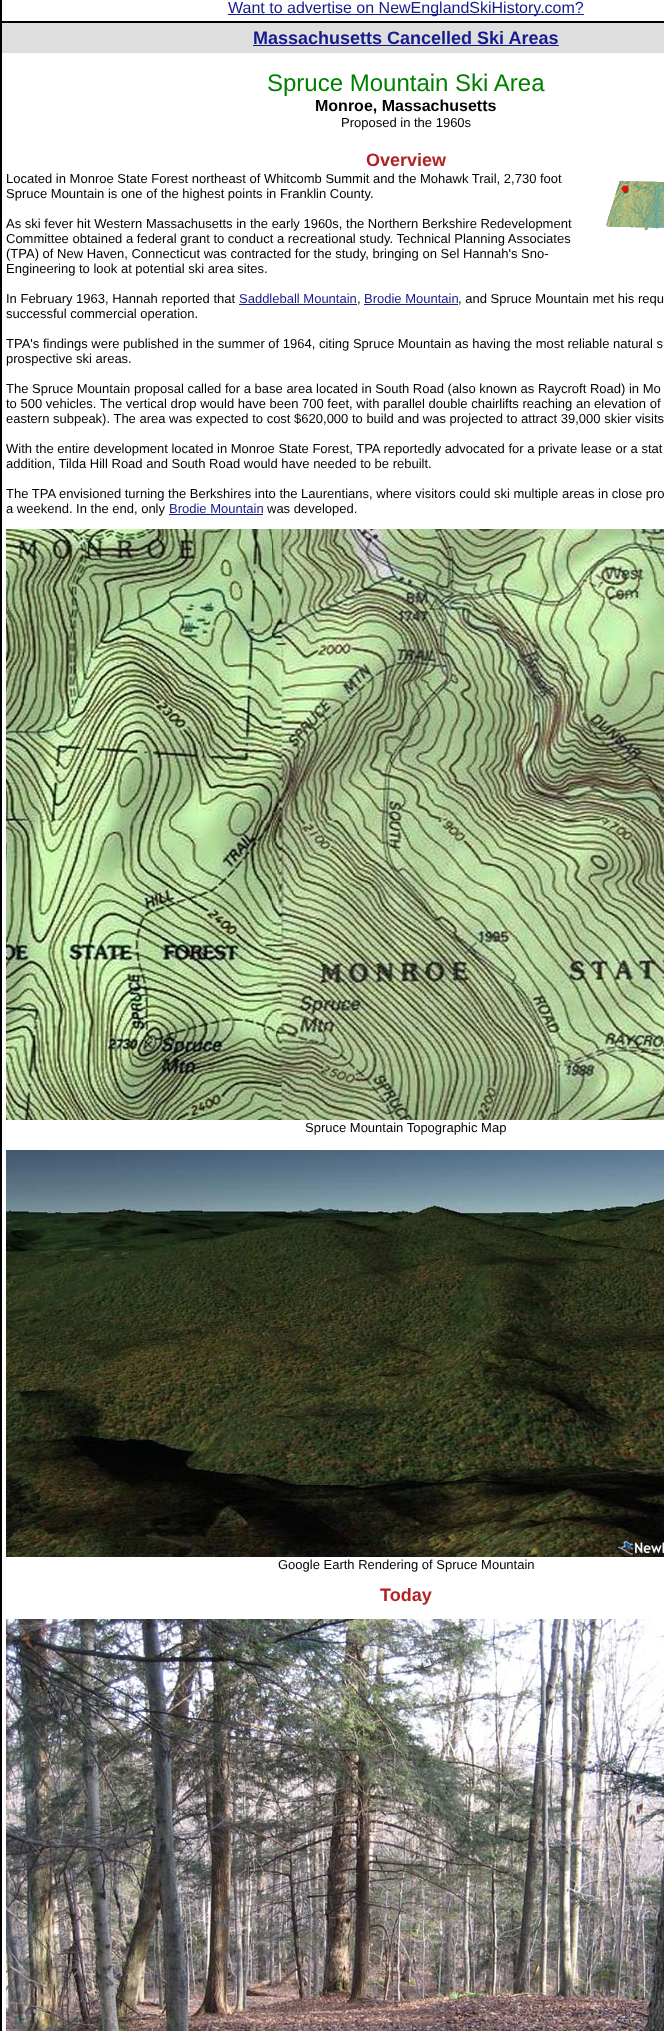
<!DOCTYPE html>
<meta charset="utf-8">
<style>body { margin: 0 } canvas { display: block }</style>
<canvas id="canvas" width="664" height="2031"></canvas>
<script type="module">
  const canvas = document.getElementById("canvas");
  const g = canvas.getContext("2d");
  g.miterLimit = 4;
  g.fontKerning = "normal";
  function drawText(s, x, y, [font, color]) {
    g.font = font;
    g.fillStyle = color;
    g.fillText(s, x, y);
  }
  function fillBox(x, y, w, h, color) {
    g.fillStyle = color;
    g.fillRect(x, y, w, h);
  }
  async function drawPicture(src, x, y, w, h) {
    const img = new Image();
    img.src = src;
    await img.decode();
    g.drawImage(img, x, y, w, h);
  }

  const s1 = ["16px Liberation Sans", "#151B8D"];
  const s2 = ["bold 18px Liberation Sans", "#151B8D"];
  const s3 = ["24px Liberation Sans", "#008000"];
  const s4 = ["bold 16px Liberation Sans", "#000000"];
  const s5 = ["13px Liberation Sans", "#000000"];
  const s6 = ["bold 18px Liberation Sans", "#B22222"];
  const s7 = ["13px Liberation Sans", "#151B8D"];

  fillBox(0, 0, 664, 2031, "#FFFFFF");
  g.strokeStyle = "#000000";
  g.strokeRect(0.5, -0.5, 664, 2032);
  g.strokeRect(1.5, -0.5, 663, 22);
  fillBox(228, 14, 356, 1, "#151B8D");
  drawText("Want to advertise on NewEnglandSkiHistory.com?", 228, 13, s1);
  g.strokeRect(1.5, 22.5, 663, 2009);
  fillBox(2, 23, 662, 30, "#DEDEDE");
  drawText("Massachusetts Cancelled Ski Areas", 253, 44, s2);
  fillBox(253, 45, 306, 1, "#151B8D");
  drawText("Spruce Mountain Ski Area", 267, 91, s3);
  drawText("Monroe, Massachusetts", 315, 111, s4);
  drawText("Proposed in the 1960s", 341, 127, s5);
  drawText("Overview", 366, 166, s6);
  drawText("Located in Monroe State Forest northeast of Whitcomb Summit and the Mohawk Trail, 2,730 foot", 6, 183, s5);
  drawText("Spruce Mountain is one of the highest points in Franklin County.", 6, 198, s5);
  drawText("As ski fever hit Western Massachusetts in the early 1960s, the Northern Berkshire Redevelopment", 6, 228, s5);
  drawText("Committee obtained a federal grant to conduct a recreational study. Technical Planning Associates", 6, 243, s5);
  drawText("(TPA) of New Haven, Connecticut was contracted for the study, bringing on Sel Hannah's Sno-", 6, 258, s5);
  drawText("Engineering to look at potential ski area sites.", 6, 273, s5);
  drawText("In February 1963, Hannah reported that", 6, 303, s5);
  drawText("Saddleball Mountain", 239, 303, s7);
  fillBox(239, 304, 118, 1, "#151B8D");
  drawText(",", 357, 303, s5);
  drawText("Brodie Mountain", 364, 303, s7);
  fillBox(364, 304, 94, 1, "#151B8D");
  drawText(", and Spruce Mountain met his requ", 458, 303, s5);
  drawText("successful commercial operation.", 6, 318, s5);
  drawText("TPA's findings were published in the summer of 1964, citing Spruce Mountain as having the most reliable natural s", 6, 348, s5);
  drawText("prospective ski areas.", 6, 363, s5);
  drawText("The Spruce Mountain proposal called for a base area located in South Road (also known as Raycroft Road) in Mo", 6, 393, s5);
  drawText("to 500 vehicles. The vertical drop would have been 700 feet, with parallel double chairlifts reaching an elevation of", 6, 408, s5);
  drawText("eastern subpeak). The area was expected to cost $620,000 to build and was projected to attract 39,000 skier visits", 6, 423, s5);
  drawText("With the entire development located in Monroe State Forest, TPA reportedly advocated for a private lease or a stat", 6, 453, s5);
  drawText("addition, Tilda Hill Road and South Road would have needed to be rebuilt.", 6, 468, s5);
  drawText("The TPA envisioned turning the Berkshires into the Laurentians, where visitors could ski multiple areas in close pro", 6, 498, s5);
  drawText("a weekend. In the end, only", 6, 513, s5);
  drawText("Brodie Mountain", 169, 513, s7);
  fillBox(169, 514, 94, 1, "#151B8D");
  drawText("was developed.", 267, 513, s5);
  await drawPicture("pic1.png", 6, 529, 658, 591);
  drawText("Spruce Mountain Topographic Map", 305, 1132, s5);
  await drawPicture("pic2.png", 6, 1150, 658, 407);
  drawText("Google Earth Rendering of Spruce Mountain", 278, 1569, s5);
  drawText("Today", 380, 1601, s6);
  await drawPicture("pic3.png", 6, 1619, 658, 412);
  await drawPicture("pic4.png", 606, 180, 58, 50);
</script>
